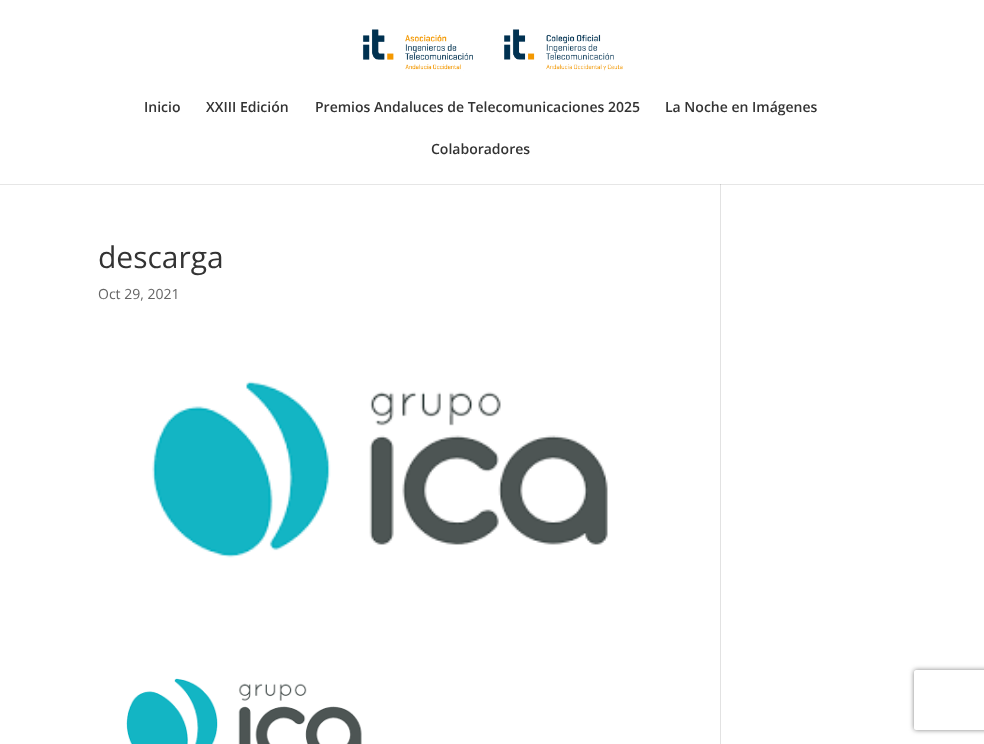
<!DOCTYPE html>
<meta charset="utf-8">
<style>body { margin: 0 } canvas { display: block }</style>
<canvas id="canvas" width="984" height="744"></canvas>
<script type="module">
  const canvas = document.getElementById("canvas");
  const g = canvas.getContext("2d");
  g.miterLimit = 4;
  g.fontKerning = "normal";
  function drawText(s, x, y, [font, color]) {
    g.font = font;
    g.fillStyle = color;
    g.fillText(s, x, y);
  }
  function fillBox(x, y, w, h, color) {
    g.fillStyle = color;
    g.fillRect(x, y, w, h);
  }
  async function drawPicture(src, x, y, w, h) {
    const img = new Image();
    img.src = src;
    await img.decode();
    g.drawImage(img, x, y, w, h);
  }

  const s1 = ["600 14px Open Sans", "#333333"];
  const s2 = ["30px Open Sans", "#333333"];
  const s3 = ["14px Open Sans", "#666666"];

  fillBox(0, 0, 984, 744, "#FFFFFF");
  fillBox(0, 184, 984, 1, "#E6E6E6");
  await drawPicture("pic1.png", 362, 29, 261, 42);
  drawText("Inicio", 144, 112, s1);
  drawText("XXIII Edición", 206, 112, s1);
  drawText("Premios Andaluces de Telecomunicaciones 2025", 315, 112, s1);
  drawText("La Noche en Imágenes", 665, 112, s1);
  drawText("Colaboradores", 431, 154, s1);
  drawText("descarga", 98, 268, s2);
  drawText("Oct 29, 2021", 98, 299, s3);
  await drawPicture("pic2.png", 152, 381, 456, 177);
  await drawPicture("pic3.png", 126, 678, 236, 66);
  fillBox(720, 184, 1, 560, "#E2E2E2");
  fillBox(720, 184, 1, 1, "#CBCBCB");
  g.save();
  g.beginPath();
  g.moveTo(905, 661);
  g.lineTo(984, 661);
  g.lineTo(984, 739);
  g.lineTo(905, 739);
  g.closePath();
  g.moveTo(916, 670);
  g.lineTo(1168, 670);
  g.bezierCurveTo(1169, 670, 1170, 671, 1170, 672);
  g.lineTo(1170, 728);
  g.bezierCurveTo(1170, 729, 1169, 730, 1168, 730);
  g.lineTo(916, 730);
  g.bezierCurveTo(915, 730, 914, 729, 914, 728);
  g.lineTo(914, 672);
  g.bezierCurveTo(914, 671, 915, 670, 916, 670);
  g.closePath();
  g.clip("evenodd");
  g.fillStyle = "#808080";
  g.filter = "blur(2.5px)";
  g.beginPath();
  g.roundRect(914, 670, 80, 60, 2);
  g.fill();
  g.filter = "none";
  g.restore();
</script>
